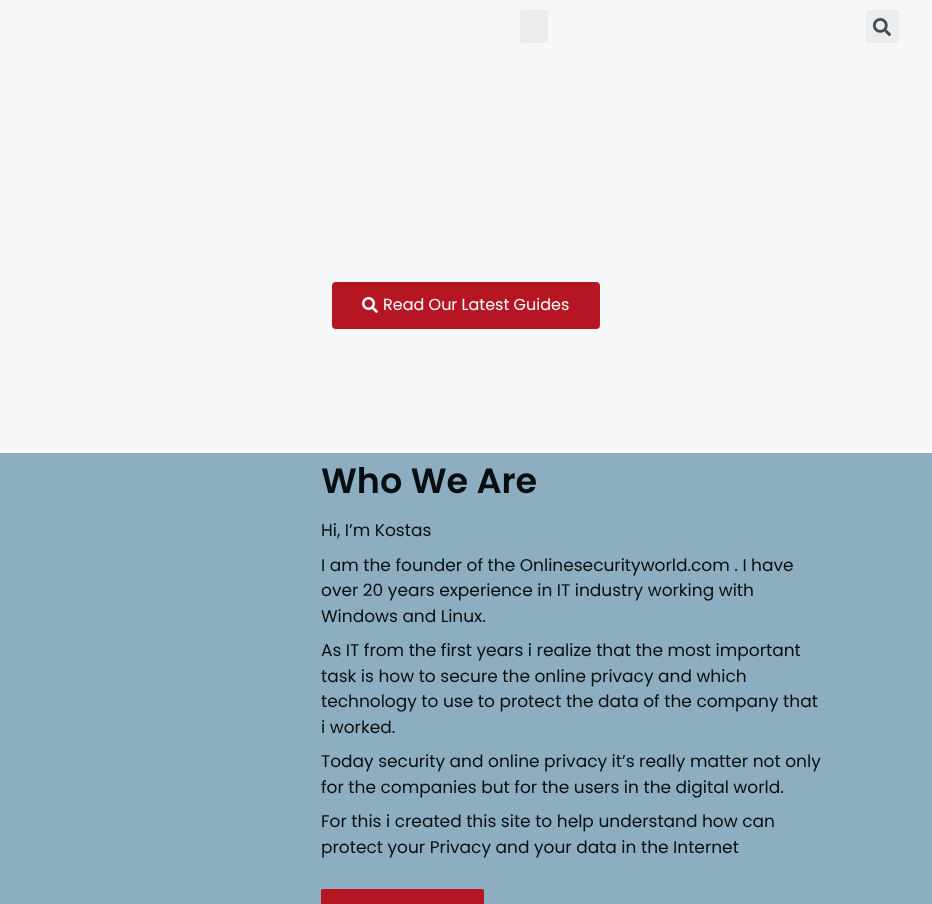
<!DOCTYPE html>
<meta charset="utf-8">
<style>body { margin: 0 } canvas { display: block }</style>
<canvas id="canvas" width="932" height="904"></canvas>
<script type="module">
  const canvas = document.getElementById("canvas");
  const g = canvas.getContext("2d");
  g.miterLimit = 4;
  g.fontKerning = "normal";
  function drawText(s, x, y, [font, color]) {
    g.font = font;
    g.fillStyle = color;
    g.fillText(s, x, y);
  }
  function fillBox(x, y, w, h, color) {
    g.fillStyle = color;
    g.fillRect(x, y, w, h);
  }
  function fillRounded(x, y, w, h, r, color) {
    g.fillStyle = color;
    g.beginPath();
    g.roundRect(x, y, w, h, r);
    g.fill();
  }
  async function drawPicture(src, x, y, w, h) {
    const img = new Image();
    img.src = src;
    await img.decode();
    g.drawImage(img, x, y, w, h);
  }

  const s1 = ["16px Poppins", "#FFFFFF"];
  const s2 = ["600 35px Poppins", "#060E0F"];
  const s3 = ["17px Poppins", "#060E0F"];

  fillBox(0, 0, 932, 904, "#F7F8F9");
  fillRounded(520, 10, 28, 33, 3, "#EBECED");
  fillRounded(866, 10, 33, 33, 3, "#EBECED");
  await drawPicture("pic1.png", 872, 18, 19, 19);
  fillRounded(332, 282, 268, 47, 4, "#B61624");
  await drawPicture("pic2.png", 362, 297, 16, 16);
  drawText("Read Our Latest Guides", 383, 310, s1);
  fillBox(0, 453, 932, 451, "#8DADC1");
  drawText("Who We Are", 321, 493, s2);
  drawText("Hi, I’m Kostas", 321, 536, s3);
  drawText("I am the founder of the Onlinesecurityworld.com . I have", 321, 571, s3);
  drawText("over 20 years experience in IT industry working with", 321, 596, s3);
  drawText("Windows and Linux.", 321, 622, s3);
  drawText("As IT from the first years i realize that the most important", 321, 656, s3);
  drawText("task is how to secure the online privacy and which", 321, 682, s3);
  drawText("technology to use to protect the data of the company that", 321, 707, s3);
  drawText("i worked.", 321, 733, s3);
  drawText("Today security and online privacy it’s really matter not only", 321, 767, s3);
  drawText("for the companies but for the users in the digital world.", 321, 793, s3);
  drawText("For this i created this site to help understand how can", 321, 827, s3);
  drawText("protect your Privacy and your data in the Internet", 321, 853, s3);
  fillRounded(321, 889, 163, 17, 2, "#B61624");
</script>
